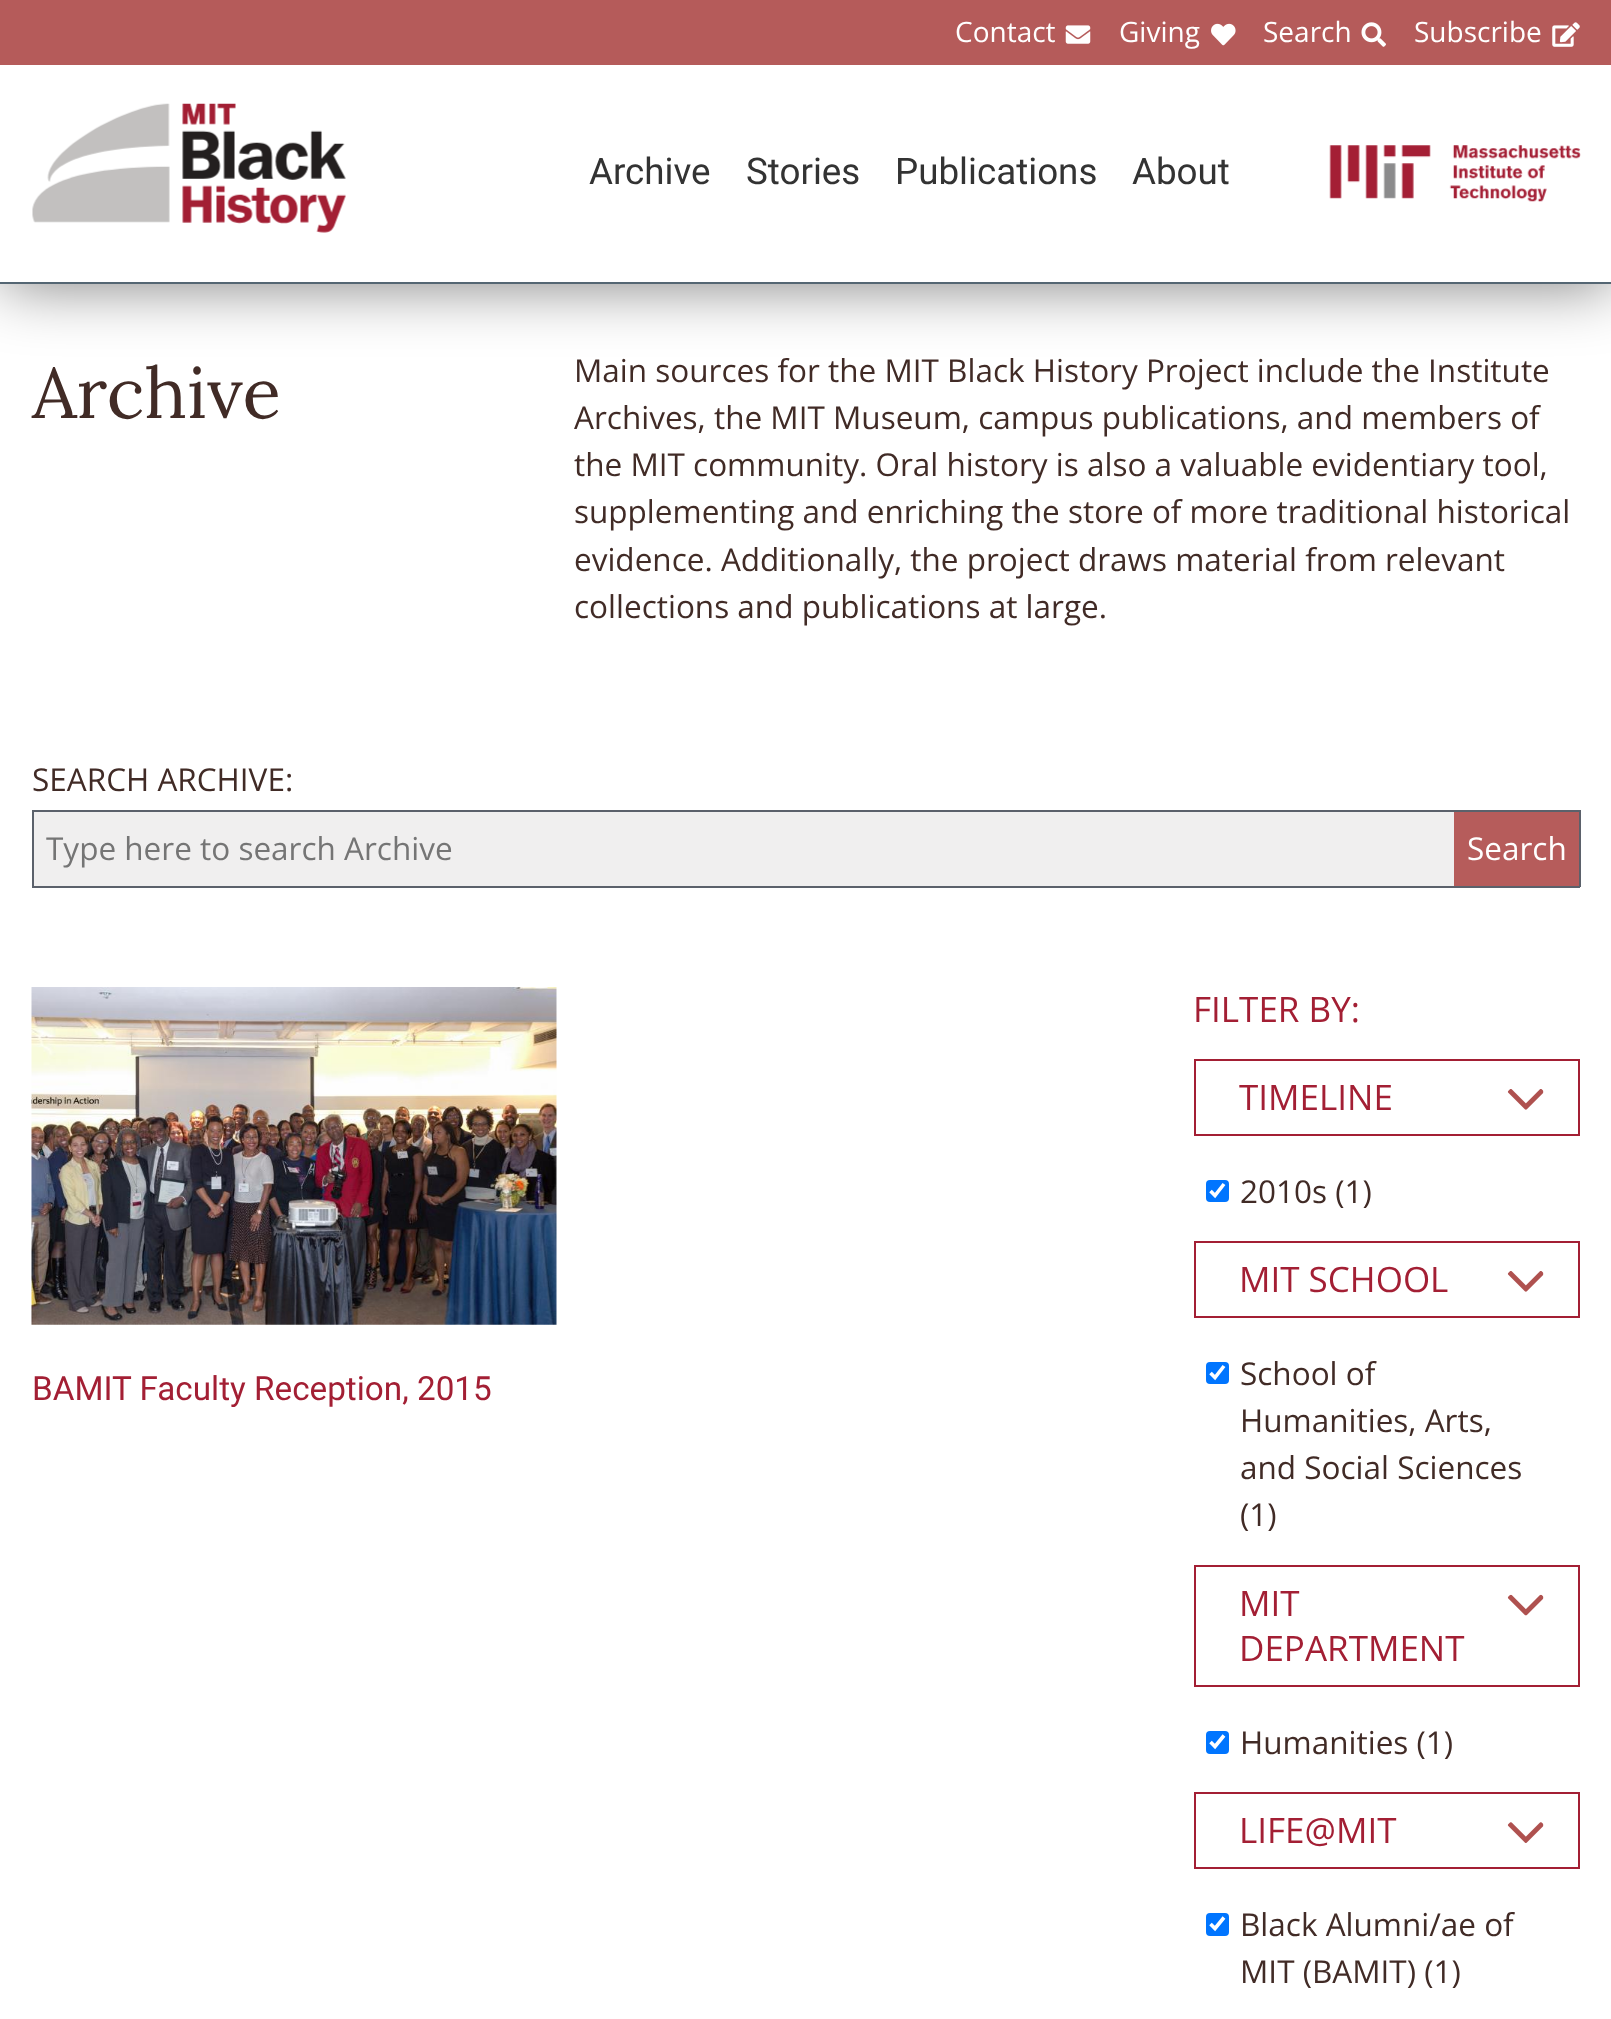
<!DOCTYPE html>
<meta charset="utf-8">
<style>body { margin: 0 } canvas { display: block }</style>
<canvas id="canvas" width="1611" height="2019"></canvas>
<script type="module">
  const canvas = document.getElementById("canvas");
  const g = canvas.getContext("2d");
  g.miterLimit = 4;
  g.fontKerning = "normal";
  function drawText(s, x, y, [font, color]) {
    g.font = font;
    g.fillStyle = color;
    g.fillText(s, x, y);
  }
  function fillBox(x, y, w, h, color) {
    g.fillStyle = color;
    g.fillRect(x, y, w, h);
  }
  function fillRounded(x, y, w, h, r, color) {
    g.fillStyle = color;
    g.beginPath();
    g.roundRect(x, y, w, h, r);
    g.fill();
  }
  async function drawPicture(src, x, y, w, h) {
    const img = new Image();
    img.src = src;
    await img.decode();
    g.drawImage(img, x, y, w, h);
  }

  const s1 = ["28px Open Sans", "#FFFFFF"];
  const s2 = ["36.75px Roboto", "#333333"];
  const s3 = ["71px Lora", "#412B26"];
  const s4 = ["31.5px Open Sans", "#412B26"];
  const s5 = ["31.5px Open Sans", "#757575"];
  const s6 = ["31.5px Open Sans", "#FFFFFF"];
  const s7 = ["33.25px Roboto", "#A31F34"];
  const s8 = ["35px Open Sans", "#A31F34"];

  fillBox(0, 0, 1611, 2019, "#FFFFFF");
  g.fillStyle = "rgba(0, 0, 0, 0.5)";
  g.filter = "blur(31.5px)";
  g.beginPath();
  g.rect(2, 2, 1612, 283);
  g.fill();
  g.filter = "none";
  fillBox(0, 65, 1611, 217, "#FFFFFF");
  fillBox(0, 282, 1611, 2, "#546673");
  fillBox(0, 0, 1611, 65, "#B55B5A");
  drawText("Contact", 955, 42, s1);
  await drawPicture("pic1.png", 1065, 25, 26, 19);
  drawText("Giving", 1119, 42, s1);
  await drawPicture("pic2.png", 1211, 23, 25, 23);
  drawText("Search", 1263, 42, s1);
  await drawPicture("pic3.png", 1361, 22, 25, 25);
  drawText("Subscribe", 1414, 42, s1);
  await drawPicture("pic4.png", 1552, 22, 28, 25);
  await drawPicture("pic5.png", 32, 103, 314, 130);
  drawText("Archive", 589, 184, s2);
  drawText("Stories", 746, 184, s2);
  drawText("Publications", 895, 184, s2);
  drawText("About", 1132, 184, s2);
  await drawPicture("pic6.png", 1329, 145, 252, 57);
  drawText("Archive", 32, 418, s3);
  drawText("Main sources for the MIT Black History Project include the Institute", 574, 382, s4);
  drawText("Archives, the MIT Museum, campus publications, and members of", 574, 429, s4);
  drawText("the MIT community. Oral history is also a valuable evidentiary tool,", 574, 476, s4);
  drawText("supplementing and enriching the store of more traditional historical", 574, 523, s4);
  drawText("evidence. Additionally, the project draws material from relevant", 574, 571, s4);
  drawText("collections and publications at large.", 574, 618, s4);
  drawText("SEARCH ARCHIVE:", 32, 791, s4);
  fillBox(34, 812, 1420, 74, "#F0EFEF");
  fillBox(32, 810, 1548, 2, "#5B616B");
  fillBox(32, 886, 1422, 2, "#5B616B");
  fillBox(32, 810, 2, 77, "#5B616B");
  g.save();
  g.beginPath();
  g.rect(46, 828, 1396, 42);
  g.clip();
  drawText("Type here to search Archive", 46, 860, s5);
  g.restore();
  fillBox(1454, 812, 125, 74, "#B65C5B");
  fillBox(1579, 810, 2, 77, "#5B616B");
  fillBox(1454, 886, 126, 2, "#5B616B");
  drawText("Search", 1467, 860, s6);
  await drawPicture("pic7.png", 31, 987, 526, 338);
  drawText("BAMIT Faculty Reception, 2015", 32, 1400, s7);
  drawText("FILTER BY:", 1193, 1022, s8);
  g.strokeStyle = "#A31F34";
  g.lineWidth = 2;
  g.strokeRect(1195, 1060, 384, 75);
  drawText("TIMELINE", 1239, 1110, s8);
  await drawPicture("pic8.png", 1507, 1089, 37, 21);
  fillRounded(1206, 1180, 23, 22, 4, "#0075FF");
  g.beginPath();
  g.moveTo(1210.5, 1191);
  g.lineTo(1215, 1195.5);
  g.lineTo(1224, 1184);
  g.strokeStyle = "#FFFFFF";
  g.lineWidth = 3.6;
  g.stroke();
  drawText("2010s (1)", 1240, 1203, s4);
  g.strokeStyle = "#A31F34";
  g.lineWidth = 2;
  g.strokeRect(1195, 1242, 384, 75);
  drawText("MIT SCHOOL", 1239, 1292, s8);
  await drawPicture("pic8.png", 1507, 1271, 37, 21);
  fillRounded(1206, 1362, 23, 22, 4, "#0075FF");
  g.beginPath();
  g.moveTo(1210.5, 1373);
  g.lineTo(1215, 1377.5);
  g.lineTo(1224, 1366);
  g.strokeStyle = "#FFFFFF";
  g.lineWidth = 3.6;
  g.stroke();
  drawText("School of", 1240, 1385, s4);
  drawText("Humanities, Arts,", 1240, 1432, s4);
  drawText("and Social Sciences", 1240, 1479, s4);
  drawText("(1)", 1240, 1526, s4);
  g.strokeStyle = "#A31F34";
  g.lineWidth = 2;
  g.strokeRect(1195, 1566, 384, 120);
  drawText("MIT", 1239, 1616, s8);
  await drawPicture("pic9.png", 1507, 1594, 37, 22);
  drawText("DEPARTMENT", 1239, 1661, s8);
  fillRounded(1206, 1731, 23, 23, 4, "#0075FF");
  g.beginPath();
  g.moveTo(1210.5, 1742);
  g.lineTo(1215, 1746.5);
  g.lineTo(1224, 1735.5);
  g.strokeStyle = "#FFFFFF";
  g.lineWidth = 3.6;
  g.stroke();
  drawText("Humanities (1)", 1240, 1754, s4);
  g.strokeStyle = "#A31F34";
  g.lineWidth = 2;
  g.strokeRect(1195, 1793, 384, 75);
  drawText("LIFE@MIT", 1239, 1843, s8);
  await drawPicture("pic10.png", 1507, 1822, 37, 21);
  fillRounded(1206, 1913, 23, 23, 4, "#0075FF");
  g.beginPath();
  g.moveTo(1210.5, 1924);
  g.lineTo(1215, 1928.5);
  g.lineTo(1224, 1917.5);
  g.strokeStyle = "#FFFFFF";
  g.lineWidth = 3.6;
  g.stroke();
  drawText("Black Alumni/ae of", 1240, 1936, s4);
  drawText("MIT (BAMIT) (1)", 1240, 1983, s4);
</script>
